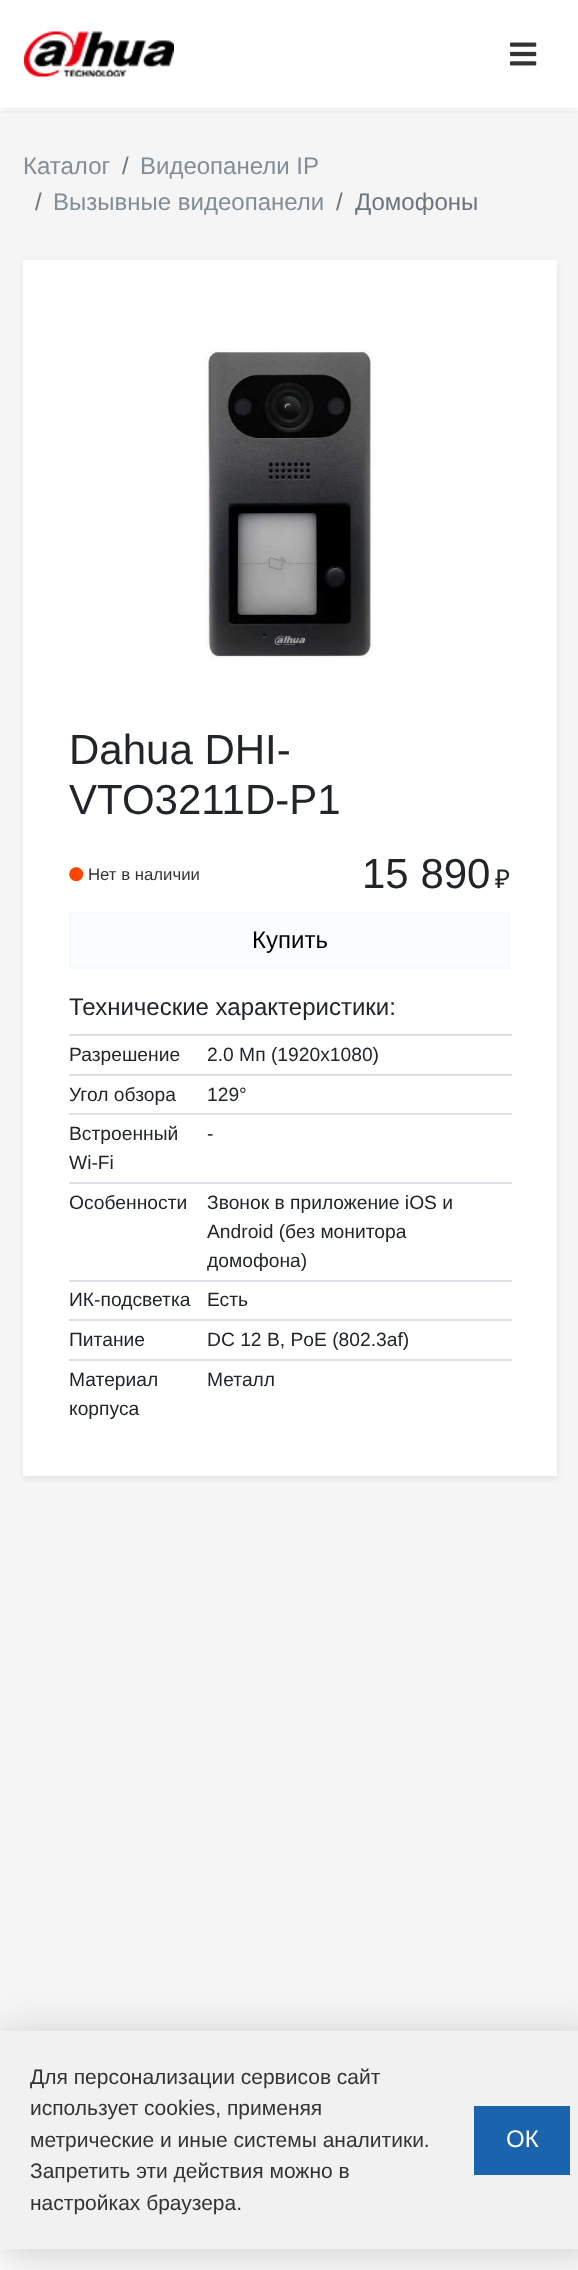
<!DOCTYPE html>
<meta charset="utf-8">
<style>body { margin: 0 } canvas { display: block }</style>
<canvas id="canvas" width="578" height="2270"></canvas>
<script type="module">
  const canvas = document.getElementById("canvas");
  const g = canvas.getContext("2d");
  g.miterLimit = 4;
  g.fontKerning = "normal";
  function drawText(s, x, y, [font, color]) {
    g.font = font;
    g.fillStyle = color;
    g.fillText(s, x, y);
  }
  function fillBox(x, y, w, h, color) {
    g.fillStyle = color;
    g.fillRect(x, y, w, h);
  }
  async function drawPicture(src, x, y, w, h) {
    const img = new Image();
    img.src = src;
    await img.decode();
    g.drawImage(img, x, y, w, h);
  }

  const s1 = ["24px Liberation Sans", "#828D96"];
  const s2 = ["24px Liberation Sans", "#6C757D"];
  const s3 = ["42px Liberation Sans", "#212529"];
  const s4 = ["16.75px Liberation Sans", "#333333"];
  const s5 = ["26px Noto Sans", "#212529"];
  const s6 = ["24px Liberation Sans", "#000000"];
  const s7 = ["24px Liberation Sans", "#212529"];
  const s8 = ["19.25px Liberation Sans", "#212529"];
  const s9 = ["21px Liberation Sans", "#333333"];
  const s10 = ["24px Liberation Sans", "#FFFFFF"];

  fillBox(0, 0, 578, 2270, "#FFFFFF");
  fillBox(0, 111, 578, 1920, "#F5F5F5");
  g.save();
  g.beginPath();
  g.rect(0, 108, 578, 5);
  g.clip();
  g.fillStyle = "rgba(0, 0, 0, 0.07)";
  g.filter = "blur(3px)";
  g.beginPath();
  g.rect(0, 3, 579, 108);
  g.fill();
  g.filter = "none";
  g.restore();
  await drawPicture("pic1.png", 24, 31, 150, 46);
  await drawPicture("pic2.png", 510, 42, 27, 24);
  drawText("Каталог", 23, 174, s1);
  drawText("/", 122, 174, s2);
  drawText("Видеопанели IP", 140, 174, s1);
  drawText("/", 35, 210, s2);
  drawText("Вызывные видеопанели", 53, 210, s1);
  drawText("/", 336, 210, s2);
  drawText("Домофоны", 355, 210, s2);
  g.fillStyle = "rgba(0, 0, 0, 0.07)";
  g.filter = "blur(3px)";
  g.beginPath();
  g.rect(23, 263, 534, 1216);
  g.fill();
  g.filter = "none";
  fillBox(23, 260, 534, 1216, "#FFFFFF");
  await drawPicture("pic3.png", 204, 348, 171, 312);
  drawText("Dahua DHI-", 69, 764, s3);
  drawText("VTO3211D-P1", 69, 814, s3);
  await drawPicture("pic4.png", 69, 867, 15, 15);
  drawText("Нет в наличии", 88, 880, s4);
  drawText("15 890", 362, 888, s3);
  drawText("₽", 495, 888, s5);
  g.fillStyle = "#FAFCFF";
  g.beginPath();
  g.rect(70, 913, 439, 55);
  g.fill();
  g.strokeStyle = "#F7FAFC";
  g.lineWidth = 2;
  g.stroke();
  drawText("Купить", 252, 948, s6);
  drawText("Технические характеристики:", 69, 1015, s7);
  drawText("Разрешение", 69, 1061, s8);
  fillBox(69, 1034, 443, 2, "#DEE2E6");
  drawText("2.0 Мп (1920х1080)", 207, 1061, s8);
  drawText("Угол обзора", 69, 1101, s8);
  fillBox(69, 1074, 443, 2, "#DEE2E6");
  drawText("129°", 207, 1101, s8);
  drawText("Встроенный", 69, 1140, s8);
  drawText("Wi-Fi", 69, 1169, s8);
  fillBox(69, 1113, 443, 2, "#DEE2E6");
  drawText("-", 207, 1140, s8);
  drawText("Особенности", 69, 1209, s8);
  fillBox(69, 1182, 443, 2, "#DEE2E6");
  drawText("Звонок в приложение iOS и", 207, 1209, s8);
  drawText("Android (без монитора", 207, 1238, s8);
  drawText("домофона)", 207, 1267, s8);
  drawText("ИК-подсветка", 69, 1306, s8);
  fillBox(69, 1280, 443, 2, "#DEE2E6");
  drawText("Есть", 207, 1306, s8);
  drawText("Питание", 69, 1346, s8);
  fillBox(69, 1319, 443, 2, "#DEE2E6");
  drawText("DC 12 В, PoE (802.3af)", 207, 1346, s8);
  drawText("Материал", 69, 1386, s8);
  drawText("корпуса", 69, 1415, s8);
  fillBox(69, 1359, 443, 2, "#DEE2E6");
  drawText("Металл", 207, 1386, s8);
  g.fillStyle = "rgba(0, 0, 0, 0.2)";
  g.filter = "blur(22.5px)";
  g.beginPath();
  g.rect(0, 2039, 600, 217);
  g.fill();
  g.filter = "none";
  fillBox(0, 2031, 578, 218, "#F1F1F1");
  drawText("Для персонализации сервисов сайт", 30, 2084, s9);
  drawText("использует cookies, применяя", 30, 2115, s9);
  drawText("метрические и иные системы аналитики.", 30, 2147, s9);
  drawText("Запретить эти действия можно в", 30, 2178, s9);
  drawText("настройках браузера.", 30, 2210, s9);
  fillBox(474, 2106, 96, 69, "#1A63AD");
  drawText("ОК", 506, 2147, s10);
</script>
